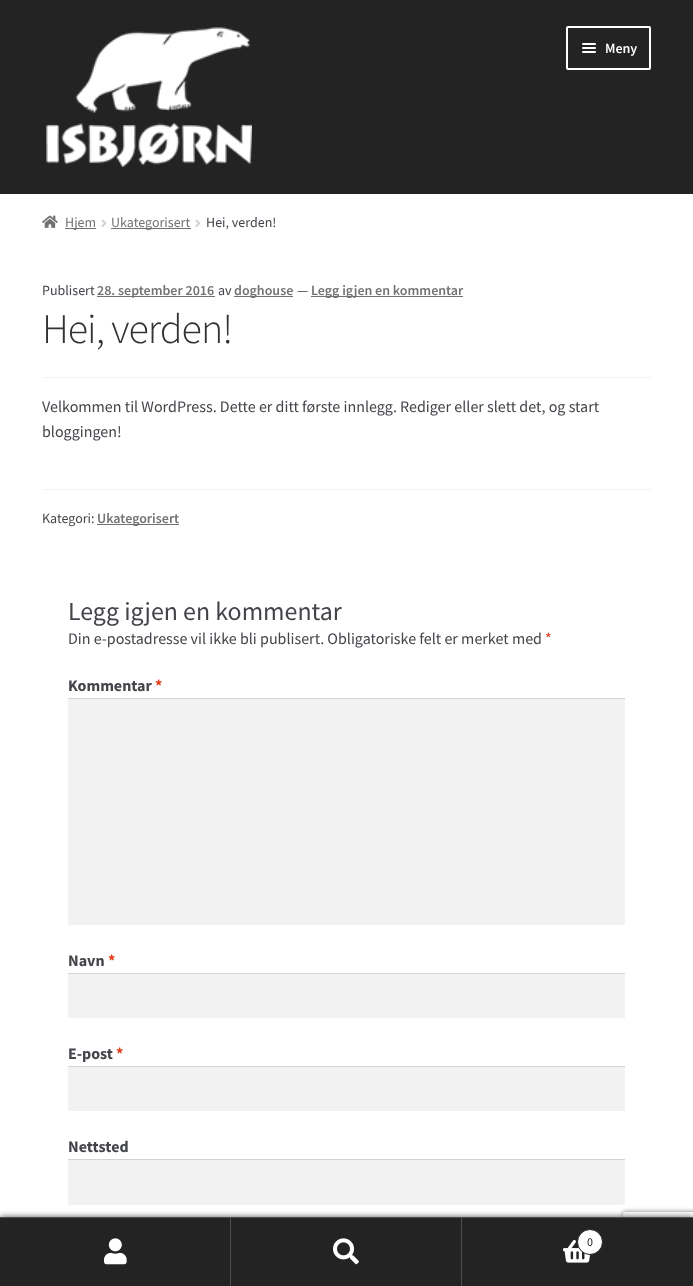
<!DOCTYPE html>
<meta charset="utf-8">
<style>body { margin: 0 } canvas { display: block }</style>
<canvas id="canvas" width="693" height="1286"></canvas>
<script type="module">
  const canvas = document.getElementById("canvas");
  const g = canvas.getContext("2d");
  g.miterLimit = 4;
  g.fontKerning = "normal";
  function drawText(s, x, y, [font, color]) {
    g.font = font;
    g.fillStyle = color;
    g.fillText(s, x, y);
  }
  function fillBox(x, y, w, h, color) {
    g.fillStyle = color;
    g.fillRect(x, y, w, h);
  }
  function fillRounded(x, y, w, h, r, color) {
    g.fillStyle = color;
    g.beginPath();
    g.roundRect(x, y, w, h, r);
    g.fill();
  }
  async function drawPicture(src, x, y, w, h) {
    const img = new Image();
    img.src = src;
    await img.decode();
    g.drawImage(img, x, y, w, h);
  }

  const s1 = ["600 14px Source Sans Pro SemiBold", "#FFFFFF"];
  const s2 = ["14px Source Sans Pro", "#727272"];
  const s3 = ["14px Source Sans Pro", "#43454B"];
  const s4 = ["600 14px Source Sans Pro SemiBold", "#727272"];
  const s5 = ["300 42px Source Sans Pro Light", "#333333"];
  const s6 = ["16px Source Sans Pro", "#43454B"];
  const s7 = ["25.9px Source Sans Pro", "#43454B"];
  const s8 = ["16px Source Sans Pro", "#E2401C"];
  const s9 = ["bold 16px Source Sans Pro", "#43454B"];
  const s10 = ["bold 16px Source Sans Pro", "#E2401C"];
  const s11 = ["12px Source Sans Pro", "#232323"];

  fillBox(0, 0, 693, 1286, "#FFFFFF");
  fillBox(0, 0, 693, 194, "#232323");
  await drawPicture("pic1.png", 46, 27, 206, 140);
  g.beginPath();
  g.roundRect(567, 27, 83, 42, 1);
  g.strokeStyle = "#FFFFFF";
  g.lineWidth = 2;
  g.stroke();
  fillRounded(582, 43, 14, 2, 1, "#FFFFFF");
  fillRounded(582, 47, 14, 2, 1, "#FFFFFF");
  drawText("Meny", 605, 53, s1);
  fillRounded(582, 51, 14, 2, 1, "#FFFFFF");
  await drawPicture("pic2.png", 42, 215, 16, 13);
  fillBox(65, 228, 31, 1, "#727272");
  drawText("Hjem", 65, 227, s2);
  await drawPicture("pic3.png", 101, 219, 6, 8);
  fillBox(111, 228, 80, 1, "#727272");
  drawText("Ukategorisert", 111, 227, s2);
  await drawPicture("pic3.png", 195, 219, 6, 8);
  drawText("Hei, verden!", 206, 227, s3);
  fillBox(42, 377, 609, 1, "#F2F2F2");
  drawText("Publisert", 42, 295, s3);
  fillBox(97, 296, 118, 1, "#727272");
  drawText("28. september 2016", 97, 295, s4);
  drawText("av", 218, 295, s3);
  fillBox(234, 296, 59, 1, "#727272");
  drawText("doghouse", 234, 295, s4);
  drawText("—", 297, 295, s3);
  fillBox(311, 296, 152, 1, "#727272");
  drawText("Legg igjen en kommentar", 311, 295, s4);
  g.letterSpacing = "-1px";
  drawText("Hei, verden!", 42, 343, s5);
  g.letterSpacing = "0px";
  drawText("Velkommen til WordPress. Dette er ditt første innlegg. Rediger eller slett det, og start", 42, 412, s6);
  drawText("bloggingen!", 42, 437, s6);
  fillBox(42, 489, 609, 1, "#F2F2F2");
  drawText("Kategori:", 42, 523, s3);
  fillBox(97, 524, 82, 1, "#727272");
  drawText("Ukategorisert", 97, 523, s4);
  drawText("Legg igjen en kommentar", 68, 620, s7);
  drawText("Din e-postadresse vil ikke bli publisert. Obligatoriske felt er merket med", 68, 644, s6);
  drawText("*", 545, 644, s8);
  drawText("Kommentar", 68, 691, s9);
  drawText("*", 155, 691, s10);
  fillBox(68, 699, 557, 226, "#F2F2F2");
  fillBox(68, 698, 557, 1, "#D4D4D4");
  drawText("Navn", 68, 966, s9);
  drawText("*", 108, 966, s10);
  fillBox(68, 974, 557, 44, "#F2F2F2");
  fillBox(68, 973, 557, 1, "#D4D4D4");
  drawText("E-post", 68, 1059, s9);
  drawText("*", 116, 1059, s10);
  fillBox(68, 1067, 557, 44, "#F2F2F2");
  fillBox(68, 1066, 557, 1, "#D4D4D4");
  drawText("Nettsted", 68, 1152, s9);
  fillBox(68, 1160, 557, 45, "#F2F2F2");
  fillBox(68, 1159, 557, 1, "#D4D4D4");
  g.fillStyle = "rgba(0, 0, 0, 0.7)";
  g.filter = "blur(3px)";
  g.beginPath();
  g.rect(0, 1217, 693, 69);
  g.fill();
  g.filter = "none";
  g.save();
  g.beginPath();
  g.moveTo(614, 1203);
  g.lineTo(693, 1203);
  g.lineTo(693, 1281);
  g.lineTo(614, 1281);
  g.closePath();
  g.moveTo(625, 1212);
  g.lineTo(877, 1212);
  g.bezierCurveTo(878, 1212, 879, 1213, 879, 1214);
  g.lineTo(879, 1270);
  g.bezierCurveTo(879, 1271, 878, 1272, 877, 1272);
  g.lineTo(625, 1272);
  g.bezierCurveTo(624, 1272, 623, 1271, 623, 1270);
  g.lineTo(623, 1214);
  g.bezierCurveTo(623, 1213, 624, 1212, 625, 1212);
  g.closePath();
  g.clip("evenodd");
  g.fillStyle = "#808080";
  g.filter = "blur(2.5px)";
  g.beginPath();
  g.roundRect(623, 1212, 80, 60, 2);
  g.fill();
  g.filter = "none";
  g.restore();
  fillBox(0, 1217, 693, 1, "#4F4F4F");
  fillBox(0, 1218, 230, 68, "#232323");
  fillBox(230, 1218, 1, 68, "#4F4F4F");
  await drawPicture("pic4.png", 104, 1238, 23, 27);
  fillBox(231, 1218, 230, 68, "#232323");
  fillBox(461, 1218, 1, 68, "#4F4F4F");
  await drawPicture("pic5.png", 333, 1238, 26, 27);
  fillBox(462, 1218, 231, 68, "#232323");
  await drawPicture("pic6.png", 563, 1240, 28, 23);
  g.fillStyle = "#FFFFFF";
  g.beginPath();
  g.arc(590, 1242, 12.5, 0, Math.PI * 2);
  g.fill();
  g.strokeStyle = "#232323";
  g.lineWidth = 1;
  g.stroke();
  drawText("0", 587, 1246, s11);
</script>
